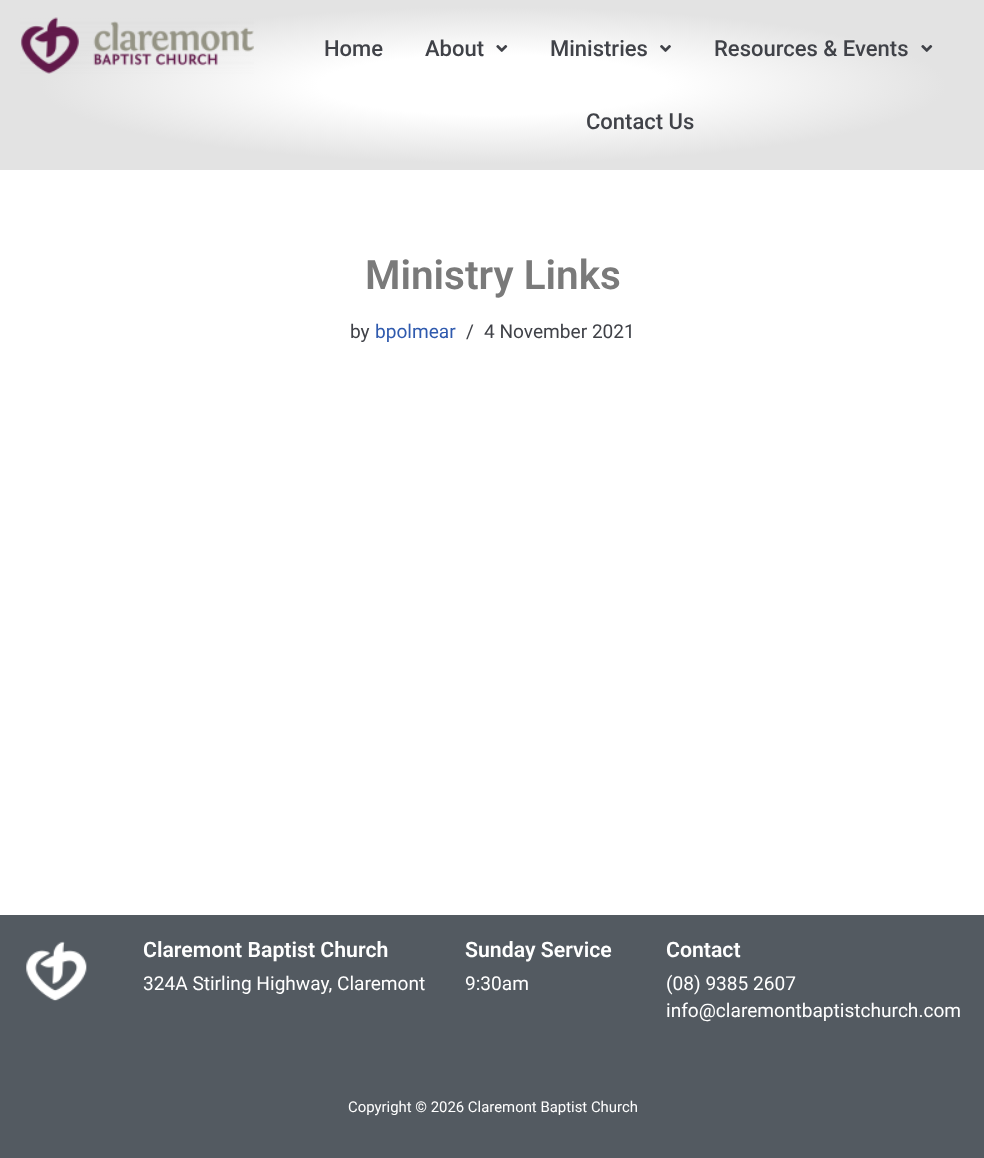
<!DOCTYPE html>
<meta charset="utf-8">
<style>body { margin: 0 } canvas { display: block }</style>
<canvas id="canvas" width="984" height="1158"></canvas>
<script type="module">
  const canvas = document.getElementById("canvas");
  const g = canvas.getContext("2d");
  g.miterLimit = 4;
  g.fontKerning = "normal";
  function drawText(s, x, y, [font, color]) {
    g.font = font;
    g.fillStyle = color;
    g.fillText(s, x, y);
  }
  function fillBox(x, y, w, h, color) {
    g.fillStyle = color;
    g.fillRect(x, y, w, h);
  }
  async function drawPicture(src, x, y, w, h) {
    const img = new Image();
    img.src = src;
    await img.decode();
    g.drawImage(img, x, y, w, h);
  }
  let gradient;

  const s1 = ["500 22px Roboto", "#404248"];
  const s2 = ["600 40.5px Roboto", "#7A7A7A"];
  const s3 = ["19.1px Roboto", "#404248"];
  const s4 = ["19.1px Roboto", "#2F5AAE"];
  const s5 = ["600 21.25px Roboto", "#FFFFFF"];
  const s6 = ["19.1px Roboto", "#FFFFFF"];
  const s7 = ["14.9px Roboto", "#FFFFFF"];

  fillBox(0, 0, 984, 1158, "#FFFFFF");
  gradient = g.createRadialGradient(493, 493.71, 0, 493, 493.71, 697);
  gradient.addColorStop(0.25, "#FFFFFF");
  gradient.addColorStop(0.65, "#E3E3E3");
  g.fillStyle = gradient;
  g.beginPath();
  g.rect(0, 0, 984, 170);
  g.save();
  g.clip();
  g.scale(1, 120 / 697);
  g.fillRect(0, 0, 984, 6727);
  g.restore();
  await drawPicture("pic1.png", 20, 17, 234, 57);
  drawText("Home", 324, 56, s1);
  drawText("About", 425, 56, s1);
  await drawPicture("pic2.png", 496, 45, 12, 7);
  drawText("Ministries", 550, 56, s1);
  await drawPicture("pic3.png", 660, 45, 11, 7);
  drawText("Resources & Events", 714, 56, s1);
  await drawPicture("pic4.png", 921, 45, 12, 7);
  drawText("Contact Us", 586, 129, s1);
  drawText("Ministry Links", 365, 289, s2);
  drawText("by", 350, 338, s3);
  drawText("bpolmear", 375, 338, s4);
  drawText("/", 466, 338, s3);
  drawText("4 November 2021", 484, 338, s3);
  fillBox(0, 915, 984, 243, "#535A61");
  await drawPicture("pic5.png", 26, 941, 61, 60);
  drawText("Claremont Baptist Church", 143, 957, s5);
  drawText("324A Stirling Highway, Claremont", 143, 990, s6);
  drawText("Sunday Service", 465, 957, s5);
  drawText("9:30am", 465, 990, s6);
  drawText("Contact", 666, 957, s5);
  drawText("(08) 9385 2607", 666, 990, s6);
  drawText("info@claremontbaptistchurch.com", 666, 1017, s6);
  drawText("Copyright © 2026 Claremont Baptist Church", 348, 1112, s7);
</script>
